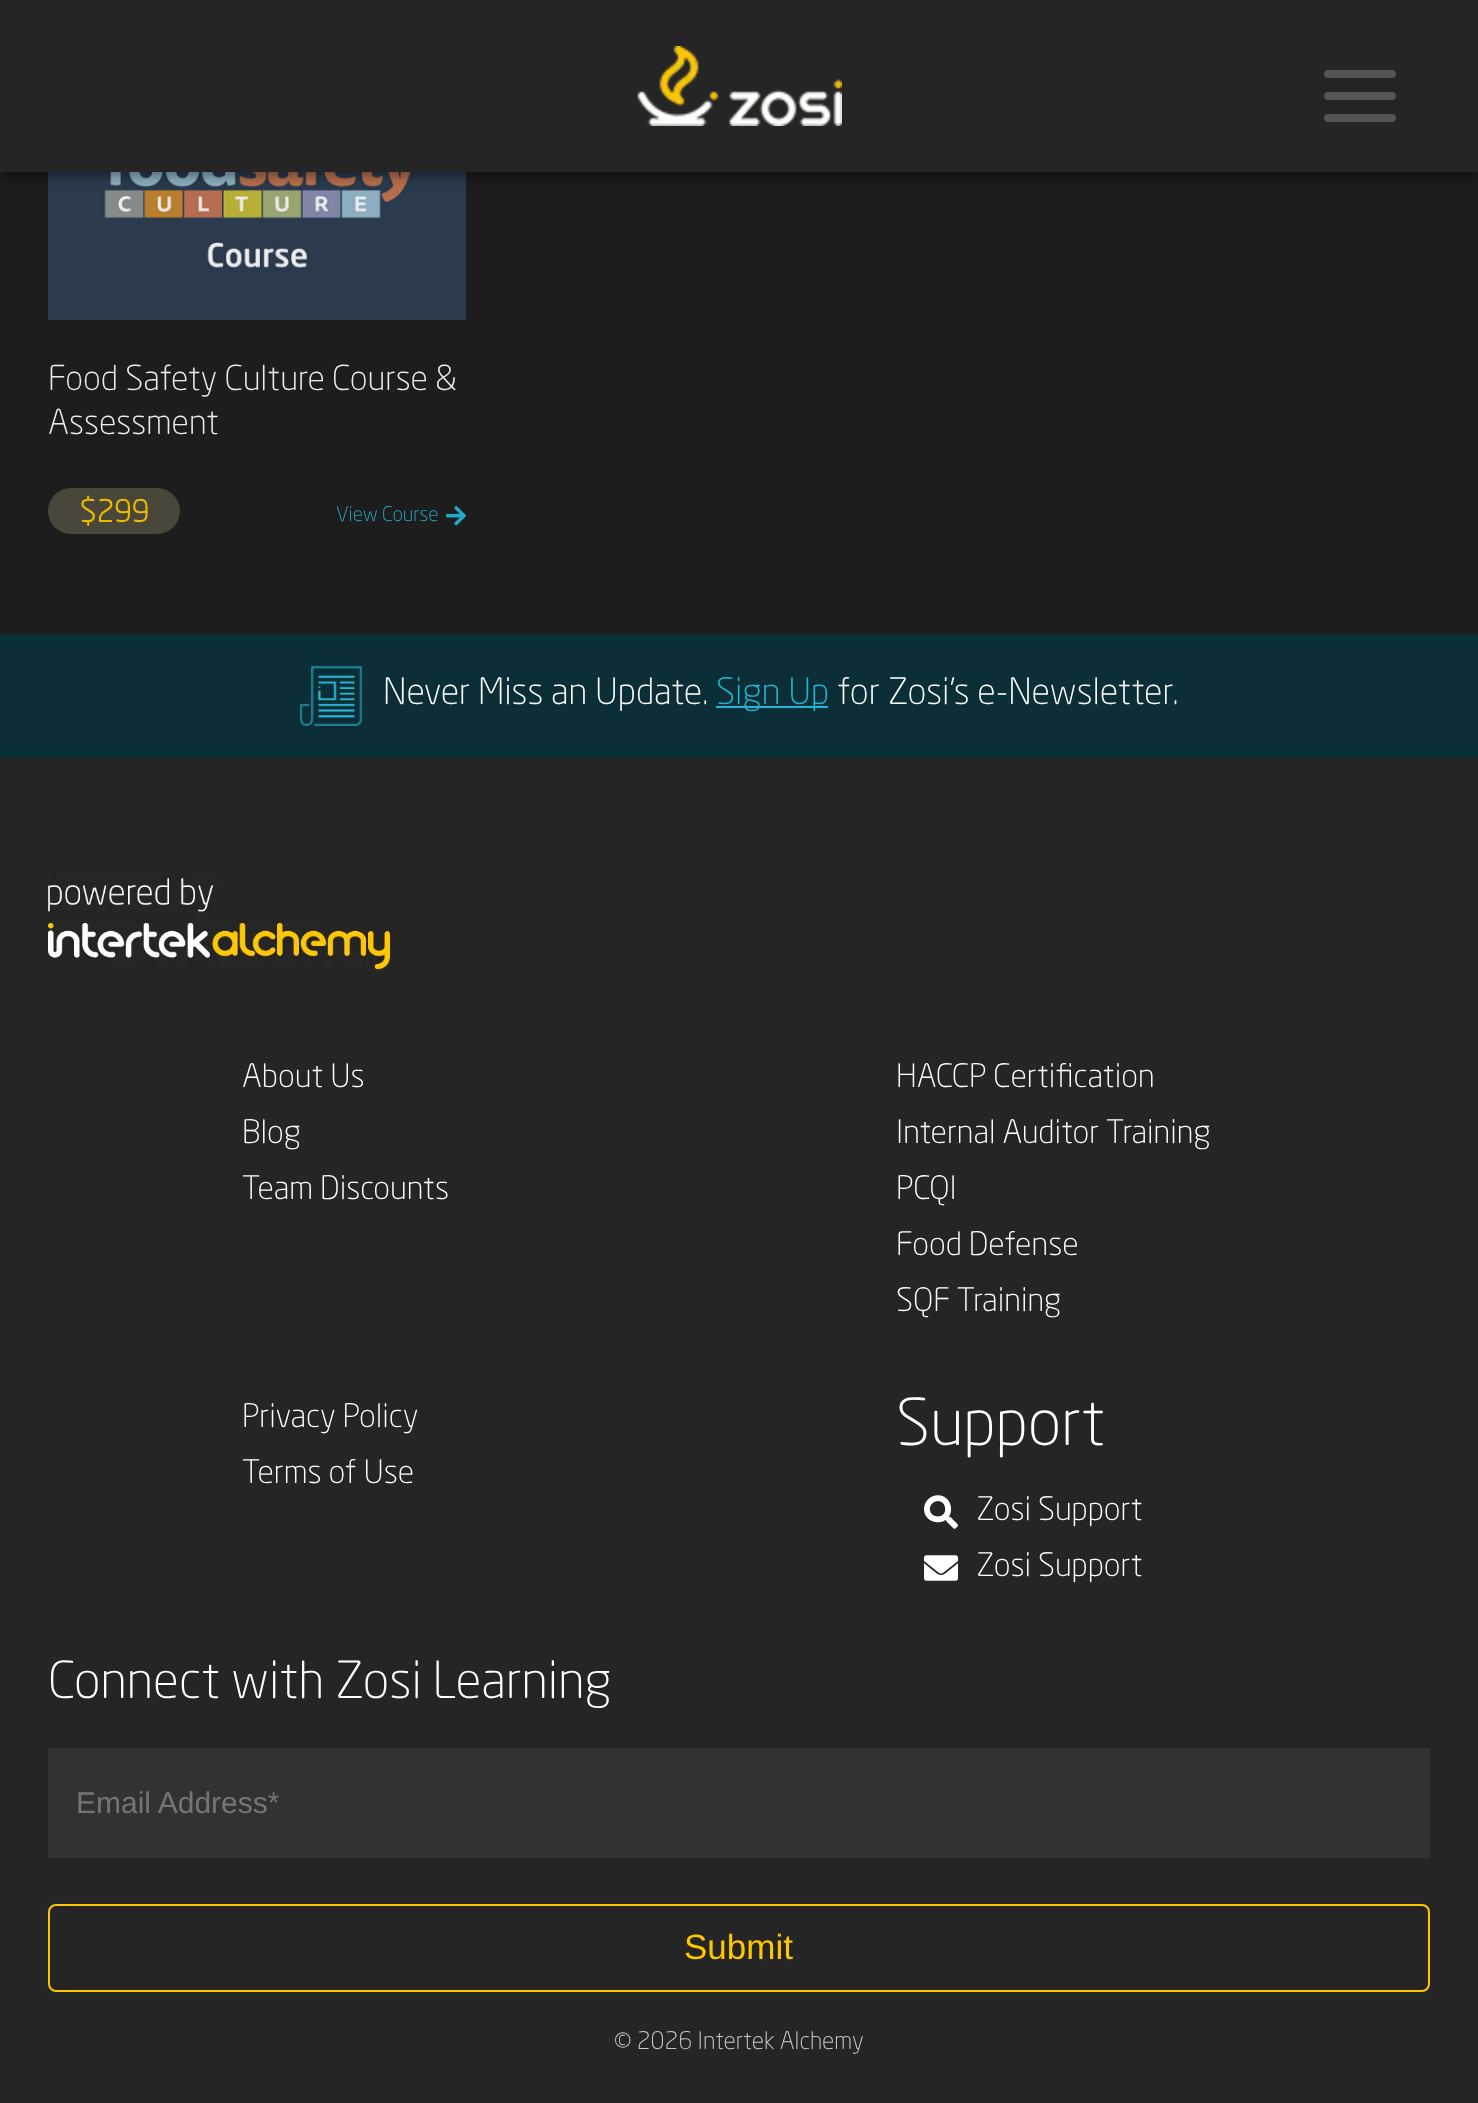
<!DOCTYPE html>
<meta charset="utf-8">
<style>body { margin: 0 } canvas { display: block }</style>
<canvas id="canvas" width="1478" height="2103"></canvas>
<script type="module">
  const canvas = document.getElementById("canvas");
  const g = canvas.getContext("2d");
  g.miterLimit = 4;
  g.fontKerning = "normal";
  function drawText(s, x, y, [font, color]) {
    g.font = font;
    g.fillStyle = color;
    g.fillText(s, x, y);
  }
  function fillBox(x, y, w, h, color) {
    g.fillStyle = color;
    g.fillRect(x, y, w, h);
  }
  function fillRounded(x, y, w, h, r, color) {
    g.fillStyle = color;
    g.beginPath();
    g.roundRect(x, y, w, h, r);
    g.fill();
  }
  async function drawPicture(src, x, y, w, h) {
    const img = new Image();
    img.src = src;
    await img.decode();
    g.drawImage(img, x, y, w, h);
  }

  const s1 = ["300 34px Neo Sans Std", "#EDEDED"];
  const s2 = ["bold 30px Neo Sans Std", "#EDB902"];
  const s3 = ["300 20px Neo Sans Std", "#21AAC8"];
  const s4 = ["300 36px Neo Sans Std", "#FFFFFF"];
  const s5 = ["300 36px Neo Sans Std", "#21B6D7"];
  const s6 = ["300 32px Neo Sans Std", "#FFFFFF"];
  const s7 = ["300 64px Neo Sans Std", "#FFFFFF"];
  const s8 = ["300 50.5px Neo Sans Std", "#FFFFFF"];
  const s9 = ["30px Liberation Sans", "#757575"];
  const s10 = ["35px Liberation Sans", "#FFC700"];
  const s11 = ["300 24px Neo Sans Std", "#C7C7C7"];

  fillBox(0, 0, 1478, 2103, "#1D1D1D");
  await drawPicture("pic2.png", 48, 172, 418, 148);
  g.fillStyle = "rgba(0, 0, 0, 0.14)";
  g.filter = "blur(4px)";
  g.beginPath();
  g.rect(0, 6, 1478, 172);
  g.fill();
  g.filter = "none";
  g.fillStyle = "rgba(0, 0, 0, 0.12)";
  g.filter = "blur(3px)";
  g.beginPath();
  g.rect(4, 10, 1470, 164);
  g.fill();
  g.filter = "none";
  g.fillStyle = "rgba(0, 0, 0, 0.2)";
  g.filter = "blur(8px)";
  g.beginPath();
  g.rect(0, 2, 1478, 172);
  g.fill();
  g.filter = "none";
  fillBox(0, 0, 1478, 172, "#252525");
  await drawPicture("pic1.png", 637, 46, 205, 80);
  fillRounded(1324, 70, 72, 8, 4, "#555555");
  fillRounded(1324, 92, 72, 8, 4, "#555555");
  fillRounded(1324, 114, 72, 8, 4, "#555555");
  drawText("Food Safety Culture Course &", 48, 390, s1);
  drawText("Assessment", 48, 434, s1);
  fillRounded(48, 488, 132, 46, 23, "#49463A");
  drawText("$299", 79, 522, s2);
  drawText("View Course", 336, 521, s3);
  await drawPicture("pic3.png", 446, 506, 20, 20);
  fillBox(0, 634, 1478, 124, "#0C2F37");
  await drawPicture("pic4.png", 300, 666, 62, 60);
  drawText("Never Miss an Update.", 383, 704, s4);
  fillBox(716, 706, 112, 2, "#21B6D7");
  drawText("Sign Up", 716, 704, s5);
  drawText("for Zosi’s e-Newsletter.", 837, 704, s4);
  fillBox(0, 758, 1478, 1345, "#252525");
  await drawPicture("pic5.png", 48, 878, 342, 93);
  drawText("About Us", 242, 1087, s6);
  drawText("Blog", 242, 1143, s6);
  drawText("Team Discounts", 242, 1199, s6);
  drawText("HACCP Certification", 896, 1087, s6);
  drawText("Internal Auditor Training", 896, 1143, s6);
  drawText("PCQI", 896, 1199, s6);
  drawText("Food Defense", 896, 1255, s6);
  drawText("SQF Training", 896, 1311, s6);
  drawText("Privacy Policy", 242, 1427, s6);
  drawText("Terms of Use", 242, 1483, s6);
  drawText("Support", 896, 1445, s7);
  await drawPicture("pic6.png", 924, 1495, 34, 34);
  drawText("Zosi Support", 976, 1520, s6);
  await drawPicture("pic7.png", 924, 1555, 34, 26);
  drawText("Zosi Support", 976, 1576, s6);
  drawText("Connect with Zosi Learning", 48, 1698, s8);
  fillBox(48, 1748, 1382, 110, "#323232");
  drawText("Email Address*", 76, 1813, s9);
  g.beginPath();
  g.roundRect(49, 1905, 1380, 86, 7);
  g.strokeStyle = "#FFC700";
  g.lineWidth = 2;
  g.stroke();
  drawText("Submit", 684, 1959, s10);
  drawText("© 2026 Intertek Alchemy", 614, 2049, s11);
</script>
